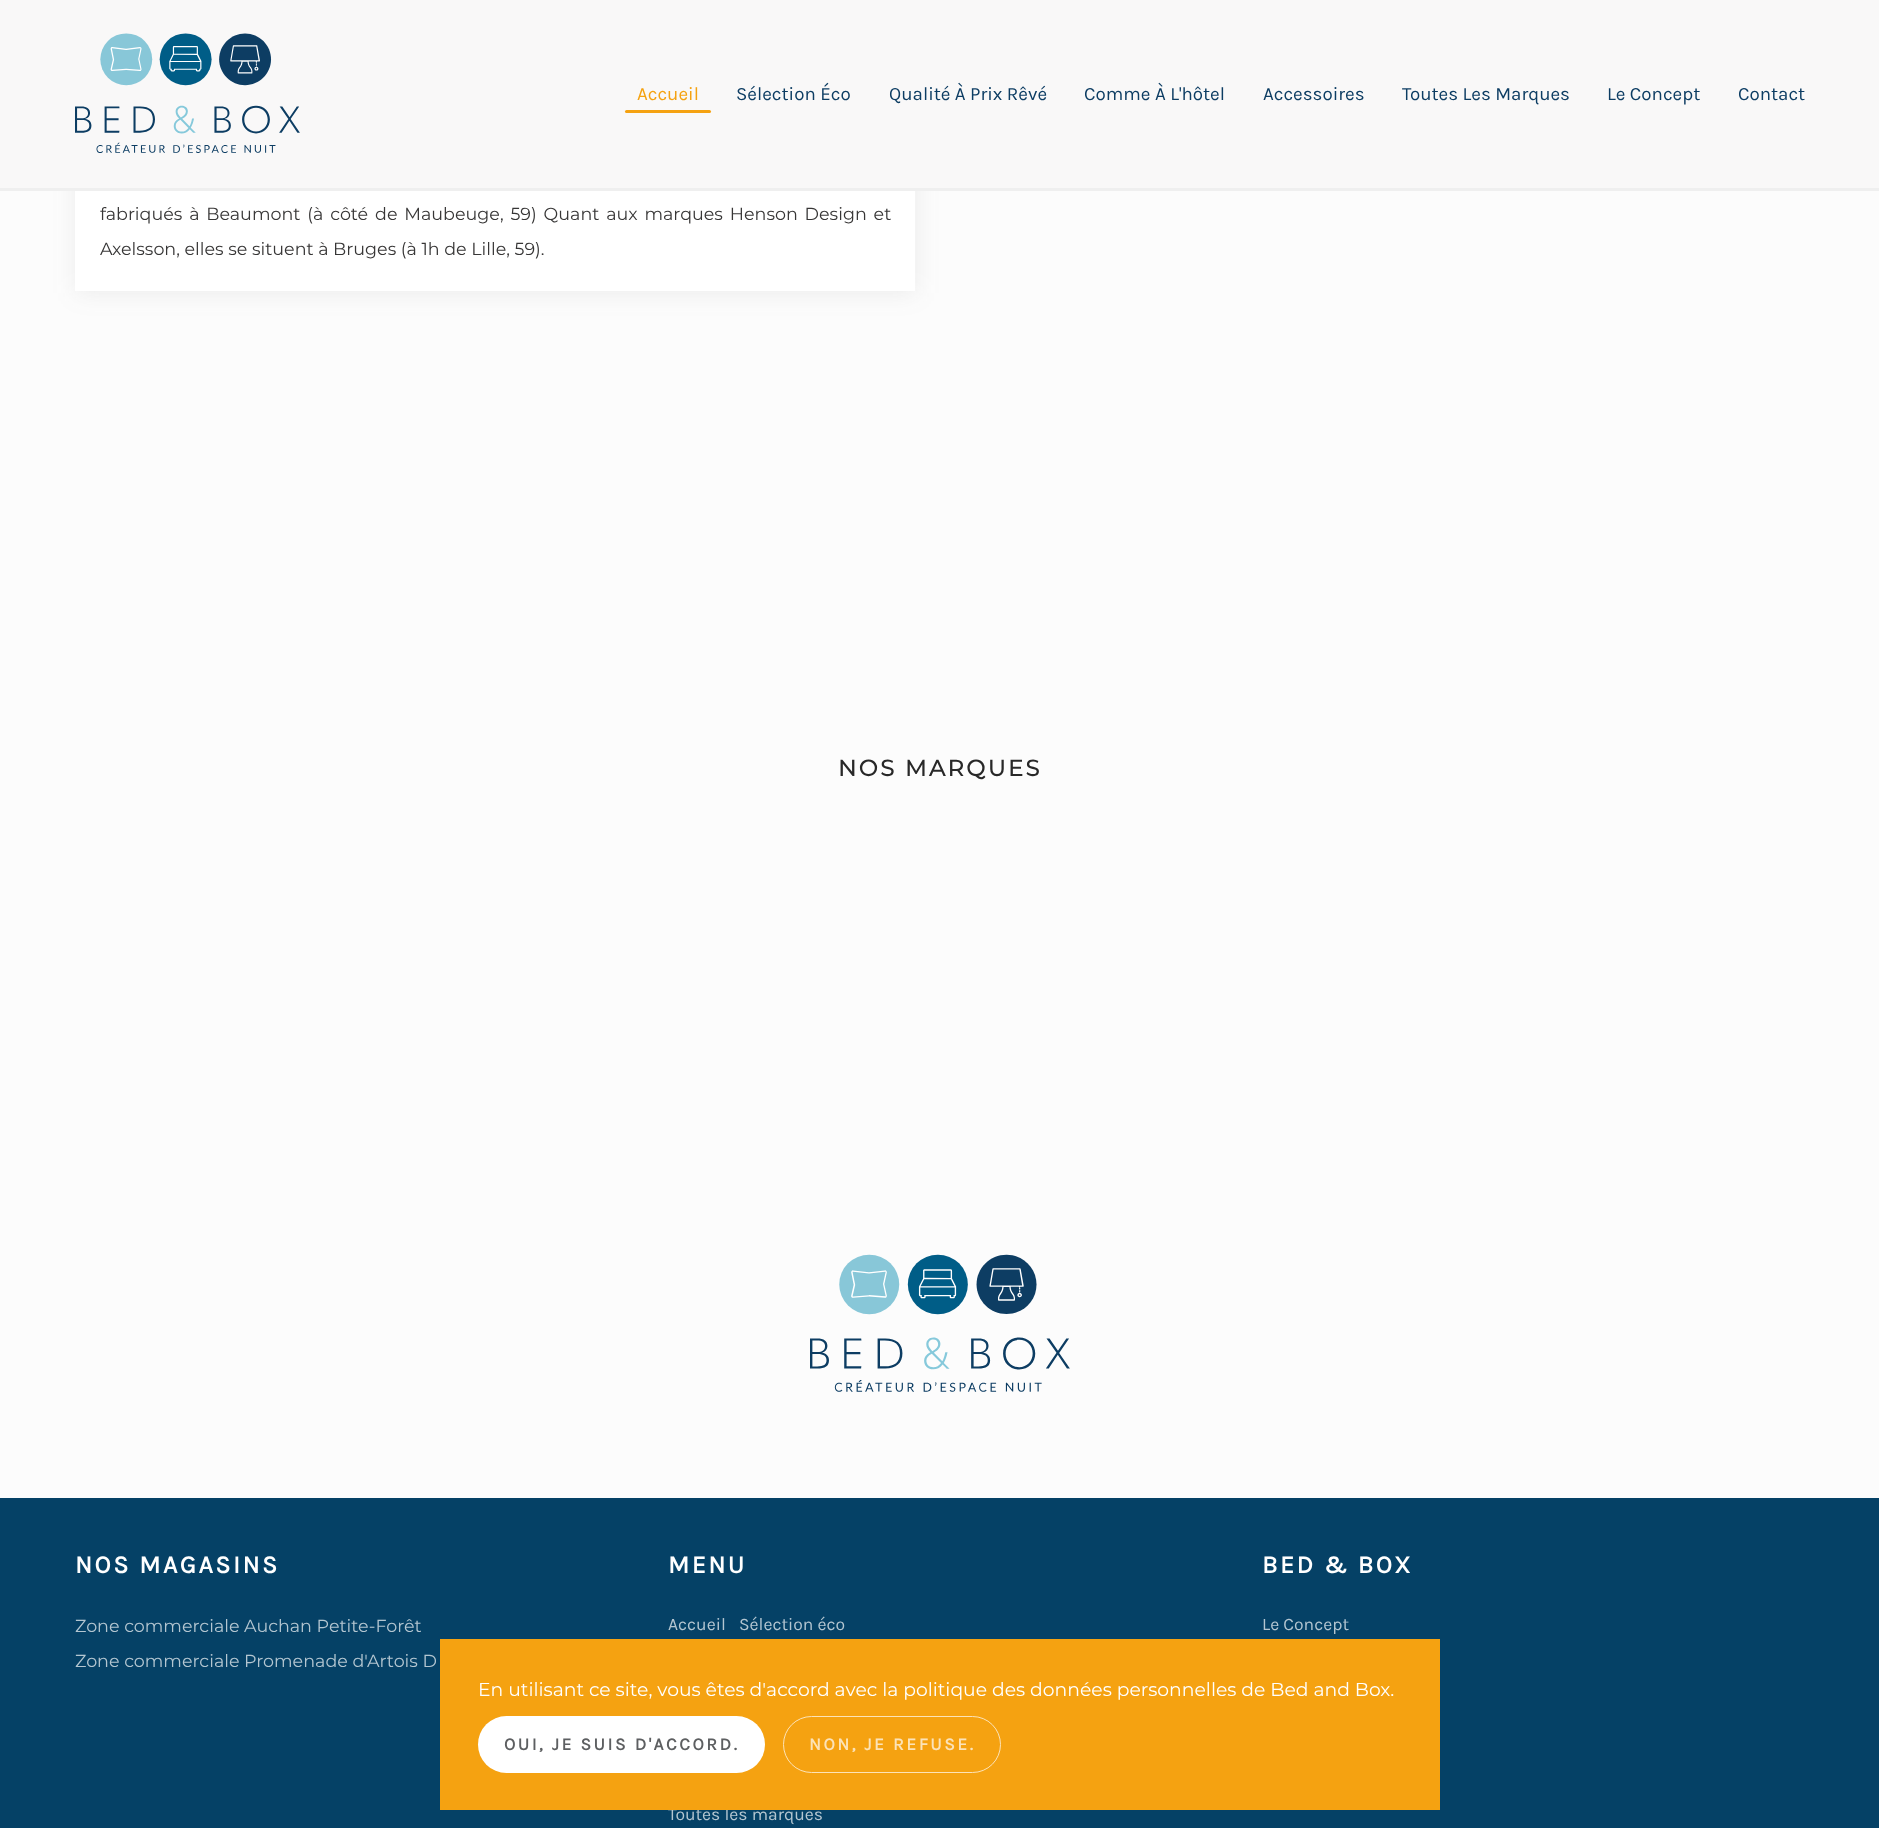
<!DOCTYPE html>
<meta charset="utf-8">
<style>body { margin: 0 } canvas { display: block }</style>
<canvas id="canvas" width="1879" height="1828"></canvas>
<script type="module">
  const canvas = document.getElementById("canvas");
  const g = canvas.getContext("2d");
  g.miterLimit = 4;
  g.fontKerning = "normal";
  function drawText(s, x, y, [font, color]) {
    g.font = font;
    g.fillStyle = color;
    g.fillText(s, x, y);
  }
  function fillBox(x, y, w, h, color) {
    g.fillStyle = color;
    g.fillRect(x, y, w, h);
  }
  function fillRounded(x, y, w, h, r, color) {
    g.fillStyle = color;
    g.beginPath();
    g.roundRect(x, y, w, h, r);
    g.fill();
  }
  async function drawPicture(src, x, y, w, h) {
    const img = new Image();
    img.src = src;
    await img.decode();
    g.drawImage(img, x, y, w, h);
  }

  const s1 = ["18.75px Karla", "#F5A211"];
  const s2 = ["18.75px Karla", "#0D3D63"];
  const s3 = ["17.5px Montserrat", "#373636"];
  const s4 = ["bold 22.5px Montserrat", "#282828"];
  const s5 = ["bold 25px Karla", "#FFFFFF"];
  const s6 = ["17.5px Montserrat", "#B4C6D1"];
  const s7 = ["17.5px Karla", "#B4C6D1"];
  const s8 = ["18.75px Montserrat", "#FFFFFF"];
  const s9 = ["bold 17.5px Karla", "#5D5F61"];
  const s10 = ["bold 17.5px Karla", "#FCE3B8"];

  fillBox(0, 0, 1879, 1828, "#FCFCFC");
  g.fillStyle = "rgba(88, 88, 88, 0.1)";
  g.filter = "blur(12.5px)";
  g.beginPath();
  g.rect(76, 55, 840, 238);
  g.fill();
  g.filter = "none";
  fillBox(0, 0, 1879, 188, "#F9F8F8");
  fillBox(0, 188, 1879, 3, "#EFEFEF");
  await drawPicture("pic1.png", 75, 33, 225, 120);
  drawText("Accueil", 637, 100, s1);
  fillRounded(625, 110, 86, 3, 1.5, "#F5A211");
  drawText("Sélection Éco", 736, 100, s2);
  drawText("Qualité À Prix Rêvé", 889, 100, s2);
  drawText("Comme À L'hôtel", 1084, 100, s2);
  drawText("Accessoires", 1263, 100, s2);
  drawText("Toutes Les Marques", 1402, 100, s2);
  drawText("Le Concept", 1607, 100, s2);
  drawText("Contact", 1738, 100, s2);
  fillBox(75, 191, 840, 100, "#FFFFFF");
  g.wordSpacing = "2.25px";
  drawText("fabriqués à Beaumont (à côté de Maubeuge, 59) Quant aux marques Henson Design et", 100, 220, s3);
  g.wordSpacing = "0px";
  drawText("Axelsson, elles se situent à Bruges (à 1h de Lille, 59).", 100, 255, s3);
  g.letterSpacing = "2.5px";
  drawText("NOS MARQUES", 838, 776, s4);
  await drawPicture("pic2.png", 810, 1254, 260, 138);
  fillBox(0, 1498, 1879, 330, "#054166");
  drawText("NOS MAGASINS", 75, 1573, s5);
  g.letterSpacing = "0px";
  drawText("Zone commerciale Auchan Petite-Forêt", 75, 1632, s6);
  drawText("Zone commerciale Promenade d'Artois D", 75, 1667, s6);
  g.letterSpacing = "2.5px";
  drawText("MENU", 668, 1573, s5);
  g.letterSpacing = "0px";
  drawText("Accueil", 668, 1630, s7);
  drawText("Sélection éco", 739, 1630, s7);
  drawText("Toutes les marques", 668, 1820, s7);
  g.letterSpacing = "2.5px";
  drawText("BED & BOX", 1262, 1573, s5);
  g.letterSpacing = "0px";
  drawText("Le Concept", 1262, 1630, s7);
  fillBox(440, 1639, 1000, 171, "#F5A211");
  drawText("En utilisant ce site, vous êtes d'accord avec la politique des données personnelles de Bed and Box.", 478, 1696, s8);
  fillRounded(478, 1716, 287, 57, 28.5, "#FFFFFF");
  g.letterSpacing = "2.5px";
  drawText("OUI, JE SUIS D'ACCORD.", 504, 1750, s9);
  g.beginPath();
  g.roundRect(783.5, 1716.5, 217, 56, 28);
  g.strokeStyle = "#FCE3B8";
  g.stroke();
  drawText("NON, JE REFUSE.", 809, 1750, s10);
</script>
